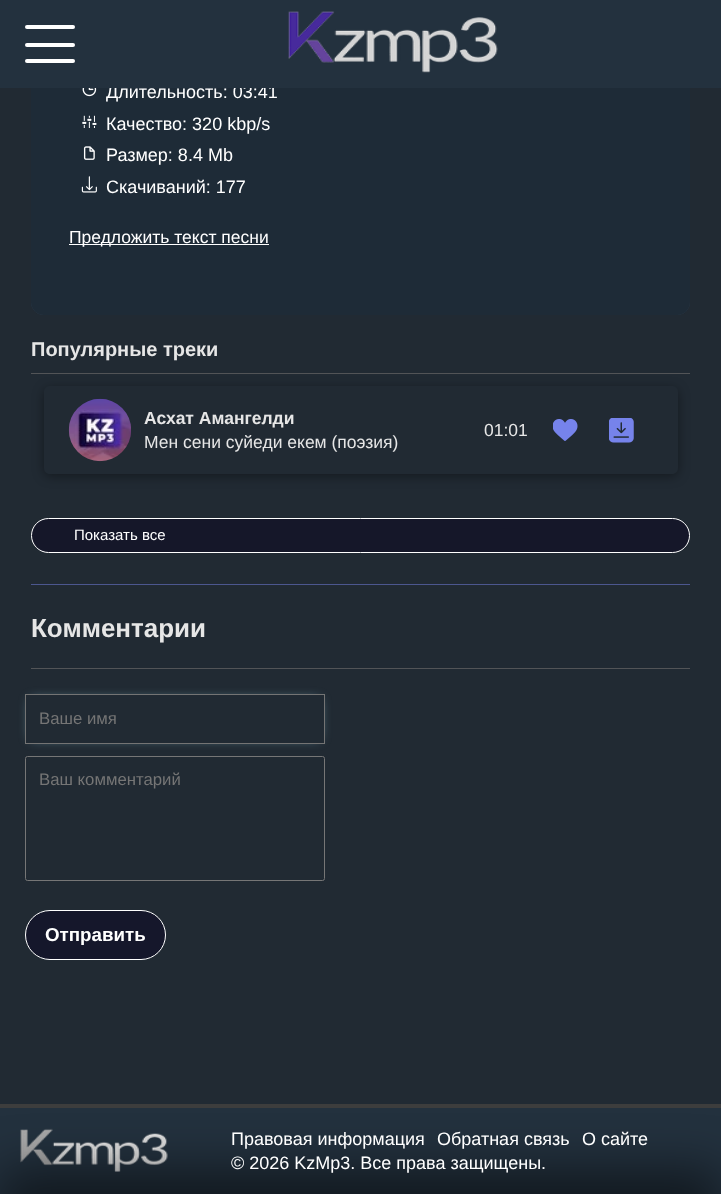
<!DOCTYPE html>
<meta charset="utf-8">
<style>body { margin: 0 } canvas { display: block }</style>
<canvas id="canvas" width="721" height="1194"></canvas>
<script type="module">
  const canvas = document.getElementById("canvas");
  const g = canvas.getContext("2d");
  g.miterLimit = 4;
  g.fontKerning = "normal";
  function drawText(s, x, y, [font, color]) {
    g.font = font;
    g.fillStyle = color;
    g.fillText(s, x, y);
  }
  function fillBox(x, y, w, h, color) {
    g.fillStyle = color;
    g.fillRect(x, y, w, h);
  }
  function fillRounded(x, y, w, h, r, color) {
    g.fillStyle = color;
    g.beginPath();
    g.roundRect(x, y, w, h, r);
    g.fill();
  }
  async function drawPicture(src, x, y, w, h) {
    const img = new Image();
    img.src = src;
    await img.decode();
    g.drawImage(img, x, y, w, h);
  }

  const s1 = ["18px Liberation Sans", "#FFFFFF"];
  const s2 = ["17.5px Liberation Sans", "#FFFFFF"];
  const s3 = ["bold 20px Liberation Sans", "#E6E6E6"];
  const s4 = ["bold 17.5px Liberation Sans", "#E6E6E6"];
  const s5 = ["17.5px Liberation Sans", "#E6E6E6"];
  const s6 = ["15px Liberation Sans", "#FFFFFF"];
  const s7 = ["bold 26px Liberation Sans", "#E6E6E6"];
  const s8 = ["16.75px Liberation Sans", "#757575"];
  const s9 = ["bold 18.75px Liberation Sans", "#FFFFFF"];

  fillBox(0, 0, 721, 1194, "#3D3D3D");
  fillBox(0, 88, 721, 1016, "#212A33");
  fillRounded(31, -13, 659, 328, 13, "#3D566E");
  fillRounded(31, -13, 659, 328, 13, "rgba(0, 0, 0, 0.5)");
  drawText("Длительность: 03:41", 106, 98, s1);
  fillBox(0, 0, 721, 88, "#23313E");
  fillRounded(25, 25, 50, 4, 2, "#FFFFFF");
  fillRounded(25, 43, 50, 4, 2, "#FFFFFF");
  fillRounded(25, 59, 50, 4, 2, "#FFFFFF");
  await drawPicture("pic1.png", 288, 11, 210, 62);
  await drawPicture("pic2.png", 82, 88, 15, 9);
  await drawPicture("pic3.png", 82, 115, 15, 13);
  drawText("Качество: 320 kbp/s", 106, 130, s1);
  await drawPicture("pic4.png", 83, 146, 12, 14);
  drawText("Размер: 8.4 Mb", 106, 161, s1);
  await drawPicture("pic5.png", 81, 176, 16, 17);
  drawText("Скачиваний: 177", 106, 193, s1);
  fillBox(69, 244, 200, 1, "#FFFFFF");
  drawText("Предложить текст песни", 69, 243, s2);
  fillBox(31, 584, 659, 1, "#4C578F");
  fillBox(31, 373, 659, 1, "#525457");
  drawText("Популярные треки", 31, 356, s3);
  g.save();
  g.beginPath();
  g.moveTo(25, 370);
  g.lineTo(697, 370);
  g.lineTo(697, 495);
  g.lineTo(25, 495);
  g.closePath();
  g.moveTo(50, 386);
  g.lineTo(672, 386);
  g.bezierCurveTo(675.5, 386, 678, 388.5, 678, 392);
  g.lineTo(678, 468);
  g.bezierCurveTo(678, 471.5, 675.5, 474, 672, 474);
  g.lineTo(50, 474);
  g.bezierCurveTo(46.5, 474, 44, 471.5, 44, 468);
  g.lineTo(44, 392);
  g.bezierCurveTo(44, 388.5, 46.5, 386, 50, 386);
  g.closePath();
  g.clip("evenodd");
  g.fillStyle = "rgba(0, 0, 0, 0.4)";
  g.filter = "blur(6px)";
  g.beginPath();
  g.roundRect(44, 389, 634, 87, 6);
  g.fill();
  g.filter = "none";
  g.restore();
  await drawPicture("pic6.png", 68, 398, 63, 64);
  drawText("Асхат Амангелди", 144, 424, s4);
  drawText("Мен сени суйеди екем (поэзия)", 144, 448, s5);
  drawText("01:01", 484, 436, s5);
  await drawPicture("pic7.png", 553, 419, 25, 22);
  await drawPicture("pic8.png", 609, 418, 25, 25);
  g.fillStyle = "#151729";
  g.beginPath();
  g.roundRect(31.5, 518.5, 658, 34, 17);
  g.fill();
  g.strokeStyle = "#FFFFFF";
  g.stroke();
  drawText("Показать все", 74, 540, s6);
  fillBox(31, 668, 659, 1, "#525457");
  drawText("Комментарии", 31, 637, s7);
  g.save();
  g.beginPath();
  g.moveTo(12, 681);
  g.lineTo(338, 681);
  g.lineTo(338, 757);
  g.lineTo(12, 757);
  g.closePath();
  g.moveTo(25, 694);
  g.lineTo(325, 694);
  g.lineTo(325, 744);
  g.lineTo(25, 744);
  g.closePath();
  g.clip("evenodd");
  g.fillStyle = "#77AEC2";
  g.filter = "blur(6px)";
  g.beginPath();
  g.rect(31, 700, 288, 38);
  g.fill();
  g.filter = "none";
  g.restore();
  g.strokeStyle = "#747474";
  g.strokeRect(25.5, 694.5, 299, 49);
  drawText("Ваше имя", 39, 724, s8);
  g.beginPath();
  g.roundRect(25.5, 756.5, 299, 124, 2);
  g.strokeStyle = "#767676";
  g.stroke();
  drawText("Ваш комментарий", 39, 785, s8);
  g.fillStyle = "#15172B";
  g.beginPath();
  g.roundRect(25.5, 910.5, 140, 49, 24.5);
  g.fill();
  g.strokeStyle = "#FFFFFF";
  g.stroke();
  drawText("Отправить", 45, 941, s9);
  fillBox(0, 1108, 721, 86, "#23313E");
  await drawPicture("pic9.png", 20, 1128, 148, 44);
  g.fillStyle = "rgba(0, 0, 0, 0.5)";
  g.filter = "blur(25px)";
  g.beginPath();
  g.rect(0, 1170, 721, 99);
  g.fill();
  g.filter = "none";
  drawText("Правовая информация", 231, 1145, s1);
  drawText("Обратная связь", 437, 1145, s1);
  drawText("О сайте", 582, 1145, s1);
  drawText("© 2026 KzMp3. Все права защищены.", 231, 1169, s1);
</script>
